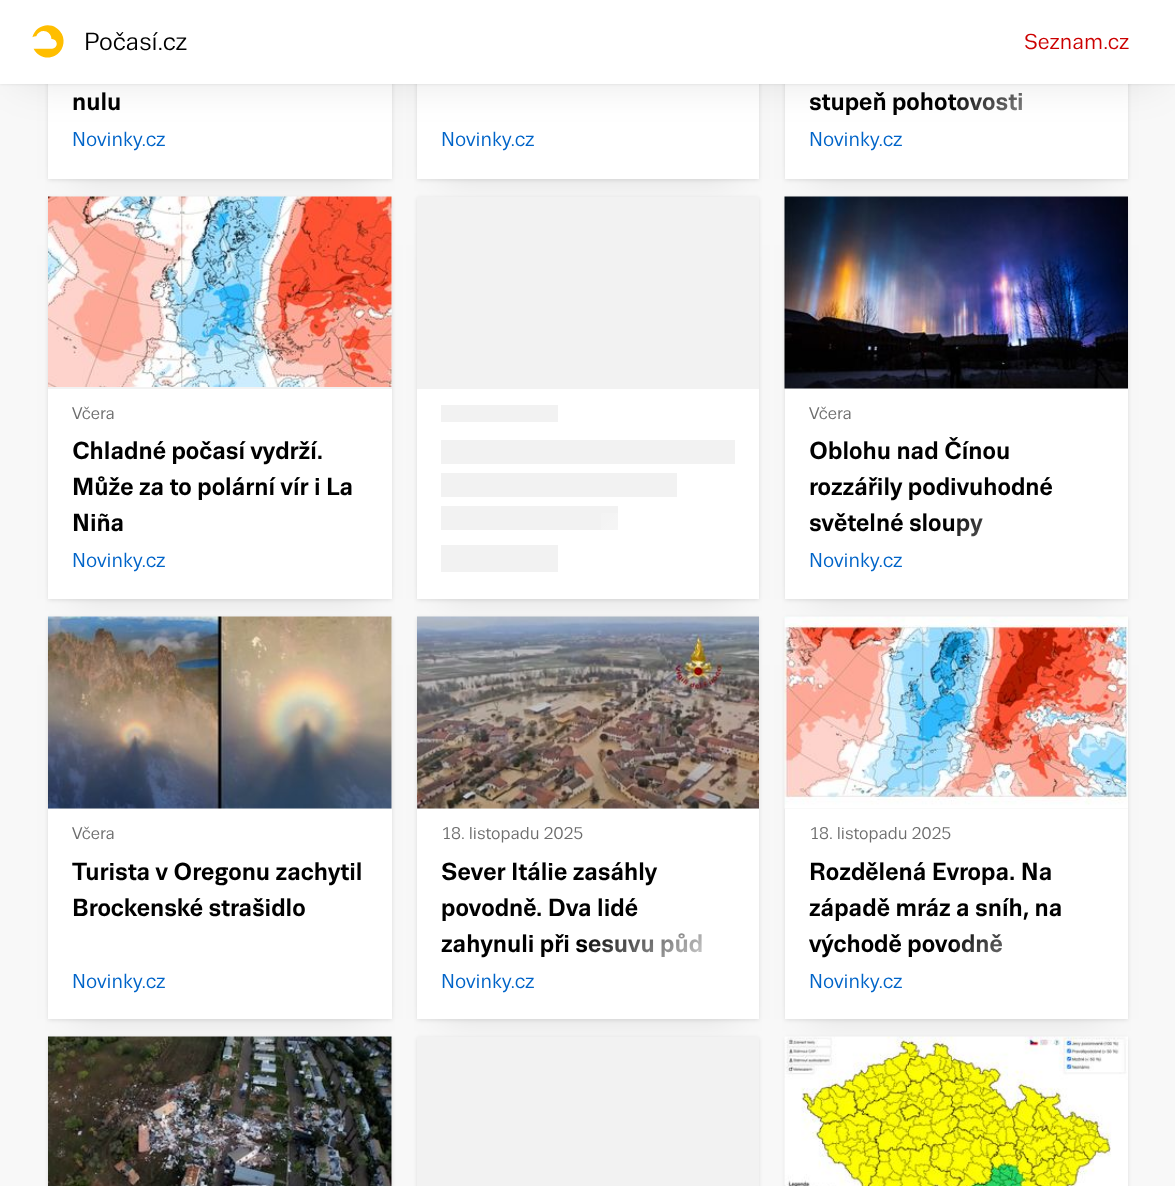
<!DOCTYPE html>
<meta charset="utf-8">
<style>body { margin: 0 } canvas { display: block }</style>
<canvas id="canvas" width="1175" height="1186"></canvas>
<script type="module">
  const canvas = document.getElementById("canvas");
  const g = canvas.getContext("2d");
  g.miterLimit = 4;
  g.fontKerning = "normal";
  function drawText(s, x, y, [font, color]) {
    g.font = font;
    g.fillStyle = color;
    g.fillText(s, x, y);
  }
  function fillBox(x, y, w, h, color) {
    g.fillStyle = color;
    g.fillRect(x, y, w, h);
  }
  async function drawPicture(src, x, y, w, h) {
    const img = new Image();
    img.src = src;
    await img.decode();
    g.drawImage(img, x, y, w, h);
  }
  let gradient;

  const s1 = ["bold 24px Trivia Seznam", "#000000"];
  const s2 = ["24px Trivia Seznam", "#000000"];
  const s3 = ["21px Trivia Seznam", "#CC0000"];
  const s4 = ["19.5px Trivia Seznam", "#0064C8"];
  const s5 = ["16.5px Trivia Seznam", "#6D6D6D"];

  fillBox(0, 0, 1175, 1186, "#F8F8F8");
  g.fillStyle = "rgba(0, 0, 0, 0.1)";
  g.filter = "blur(18px)";
  g.beginPath();
  g.rect(72, -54, 296, 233);
  g.fill();
  g.filter = "none";
  g.filter = "blur(2px)";
  g.beginPath();
  g.rect(48, -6, 344, 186);
  g.fill();
  g.filter = "none";
  fillBox(48, 84, 344, 95, "#FFFFFF");
  g.fillStyle = "rgba(0, 0, 0, 0.1)";
  g.filter = "blur(18px)";
  g.beginPath();
  g.rect(441, -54, 294, 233);
  g.fill();
  g.filter = "none";
  g.filter = "blur(2px)";
  g.beginPath();
  g.rect(417, -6, 342, 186);
  g.fill();
  g.filter = "none";
  fillBox(417, 84, 342, 95, "#FFFFFF");
  g.fillStyle = "rgba(0, 0, 0, 0.1)";
  g.filter = "blur(18px)";
  g.beginPath();
  g.rect(809, -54, 295, 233);
  g.fill();
  g.filter = "none";
  g.filter = "blur(2px)";
  g.beginPath();
  g.rect(785, -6, 343, 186);
  g.fill();
  g.filter = "none";
  fillBox(785, 84, 343, 95, "#FFFFFF");
  drawText("stupeň pohotovosti", 809, 110, s1);
  gradient = g.createLinearGradient(984, 57, 1076, 150);
  gradient.addColorStop(0, "rgba(255, 255, 255, 0)");
  gradient.addColorStop(1, "#FFFFFF");
  g.fillStyle = gradient;
  g.fillRect(957, 92, 65, 19);
  g.fillStyle = "rgba(0, 0, 0, 0.12)";
  g.filter = "blur(22.5px)";
  g.beginPath();
  g.rect(18, 30, 1140, 48);
  g.fill();
  g.filter = "none";
  g.fillStyle = "rgba(0, 0, 0, 0.1)";
  g.filter = "blur(1.5px)";
  g.beginPath();
  g.rect(0, 0, 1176, 84);
  g.fill();
  g.filter = "none";
  fillBox(0, 0, 1175, 84, "#FFFFFF");
  await drawPicture("pic1.png", 32, 25, 32, 33);
  drawText("Počasí.cz", 84, 50, s2);
  drawText("Seznam.cz", 1024, 49, s3);
  drawText("nulu", 72, 110, s1);
  drawText("Novinky.cz", 72, 146, s4);
  drawText("Novinky.cz", 441, 146, s4);
  drawText("Novinky.cz", 809, 146, s4);
  g.fillStyle = "rgba(0, 0, 0, 0.1)";
  g.filter = "blur(18px)";
  g.beginPath();
  g.rect(72, 245, 296, 354);
  g.fill();
  g.filter = "none";
  g.filter = "blur(2px)";
  g.beginPath();
  g.rect(48, 198, 344, 402);
  g.fill();
  g.filter = "none";
  fillBox(48, 389, 344, 210, "#FFFFFF");
  fillBox(48, 197, 344, 192, "#F2F2F2");
  await drawPicture("pic2.png", 48, 196, 344, 191);
  drawText("Včera", 72, 419, s5);
  drawText("Chladné počasí vydrží.", 72, 459, s1);
  drawText("Může za to polární vír i La", 72, 495, s1);
  drawText("Niña", 72, 531, s1);
  drawText("Novinky.cz", 72, 567, s4);
  g.fillStyle = "rgba(0, 0, 0, 0.1)";
  g.filter = "blur(18px)";
  g.beginPath();
  g.rect(441, 245, 294, 354);
  g.fill();
  g.filter = "none";
  g.filter = "blur(2px)";
  g.beginPath();
  g.rect(417, 198, 342, 402);
  g.fill();
  g.filter = "none";
  fillBox(417, 389, 342, 210, "#FFFFFF");
  fillBox(417, 197, 342, 192, "#F2F2F2");
  fillBox(441, 405, 117, 17, "#F2F2F2");
  fillBox(441, 440, 294, 24, "#F2F2F2");
  fillBox(441, 473, 236, 24, "#F2F2F2");
  fillBox(441, 506, 177, 24, "#F2F2F2");
  gradient = g.createLinearGradient(616, 478, 707, 569);
  gradient.addColorStop(0, "rgba(255, 255, 255, 0)");
  gradient.addColorStop(1, "#FFFFFF");
  g.fillStyle = gradient;
  g.fillRect(601, 513, 17, 17);
  fillBox(441, 545, 117, 27, "#F2F2F2");
  g.fillStyle = "rgba(0, 0, 0, 0.1)";
  g.filter = "blur(18px)";
  g.beginPath();
  g.rect(809, 245, 295, 354);
  g.fill();
  g.filter = "none";
  g.filter = "blur(2px)";
  g.beginPath();
  g.rect(785, 198, 343, 402);
  g.fill();
  g.filter = "none";
  fillBox(785, 389, 343, 210, "#FFFFFF");
  fillBox(785, 388, 343, 1, "#F2F2F2");
  await drawPicture("pic3.png", 784, 196, 344, 193);
  drawText("Včera", 809, 419, s5);
  drawText("Oblohu nad Čínou", 809, 459, s1);
  drawText("rozzářily podivuhodné", 809, 495, s1);
  drawText("světelné sloupy", 809, 531, s1);
  gradient = g.createLinearGradient(984, 477, 1076, 570);
  gradient.addColorStop(0, "rgba(255, 255, 255, 0)");
  gradient.addColorStop(1, "#FFFFFF");
  g.fillStyle = gradient;
  g.fillRect(957, 518, 26, 19);
  drawText("Novinky.cz", 809, 567, s4);
  g.fillStyle = "rgba(0, 0, 0, 0.1)";
  g.filter = "blur(18px)";
  g.beginPath();
  g.rect(72, 665, 296, 354);
  g.fill();
  g.filter = "none";
  g.filter = "blur(2px)";
  g.beginPath();
  g.rect(48, 618, 344, 402);
  g.fill();
  g.filter = "none";
  fillBox(48, 809, 344, 210, "#FFFFFF");
  fillBox(48, 617, 344, 192, "#F2F2F2");
  await drawPicture("pic4.png", 48, 616, 344, 193);
  drawText("Včera", 72, 839, s5);
  drawText("Turista v Oregonu zachytil", 72, 880, s1);
  drawText("Brockenské strašidlo", 72, 916, s1);
  drawText("Novinky.cz", 72, 988, s4);
  g.fillStyle = "rgba(0, 0, 0, 0.1)";
  g.filter = "blur(18px)";
  g.beginPath();
  g.rect(441, 665, 294, 354);
  g.fill();
  g.filter = "none";
  g.filter = "blur(2px)";
  g.beginPath();
  g.rect(417, 618, 342, 402);
  g.fill();
  g.filter = "none";
  fillBox(417, 809, 342, 210, "#FFFFFF");
  fillBox(417, 808, 342, 1, "#F2F2F2");
  await drawPicture("pic5.png", 417, 616, 342, 193);
  drawText("18. listopadu 2025", 441, 839, s5);
  drawText("Sever Itálie zasáhly", 441, 880, s1);
  drawText("povodně. Dva lidé", 441, 916, s1);
  drawText("zahynuli při sesuvu půd", 441, 952, s1);
  gradient = g.createLinearGradient(616, 898, 707, 989);
  gradient.addColorStop(0, "rgba(255, 255, 255, 0)");
  gradient.addColorStop(1, "#FFFFFF");
  g.fillStyle = gradient;
  g.fillRect(588, 933, 114, 25);
  drawText("Novinky.cz", 441, 988, s4);
  g.fillStyle = "rgba(0, 0, 0, 0.1)";
  g.filter = "blur(18px)";
  g.beginPath();
  g.rect(809, 665, 295, 354);
  g.fill();
  g.filter = "none";
  g.filter = "blur(2px)";
  g.beginPath();
  g.rect(785, 618, 343, 402);
  g.fill();
  g.filter = "none";
  fillBox(785, 809, 343, 210, "#FFFFFF");
  fillBox(785, 808, 343, 1, "#F2F2F2");
  await drawPicture("pic6.png", 784, 616, 344, 193);
  drawText("18. listopadu 2025", 809, 839, s5);
  drawText("Rozdělená Evropa. Na", 809, 880, s1);
  drawText("západě mráz a sníh, na", 809, 916, s1);
  drawText("východě povodně", 809, 952, s1);
  gradient = g.createLinearGradient(984, 897, 1076, 990);
  gradient.addColorStop(0, "rgba(255, 255, 255, 0)");
  gradient.addColorStop(1, "#FFFFFF");
  g.fillStyle = gradient;
  g.fillRect(956, 934, 46, 19);
  drawText("Novinky.cz", 809, 988, s4);
  g.fillStyle = "rgba(0, 0, 0, 0.1)";
  g.filter = "blur(2px)";
  g.beginPath();
  g.rect(48, 1038, 344, 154);
  g.fill();
  g.filter = "none";
  fillBox(391, 1037, 1, 149, "#F2F2F2");
  await drawPicture("pic7.png", 48, 1036, 344, 150);
  g.fillStyle = "rgba(0, 0, 0, 0.1)";
  g.filter = "blur(2px)";
  g.beginPath();
  g.rect(417, 1038, 342, 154);
  g.fill();
  g.filter = "none";
  fillBox(417, 1037, 342, 149, "#F2F2F2");
  g.fillStyle = "rgba(0, 0, 0, 0.1)";
  g.filter = "blur(2px)";
  g.beginPath();
  g.rect(785, 1038, 343, 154);
  g.fill();
  g.filter = "none";
  await drawPicture("pic8.png", 784, 1036, 344, 150);
</script>
